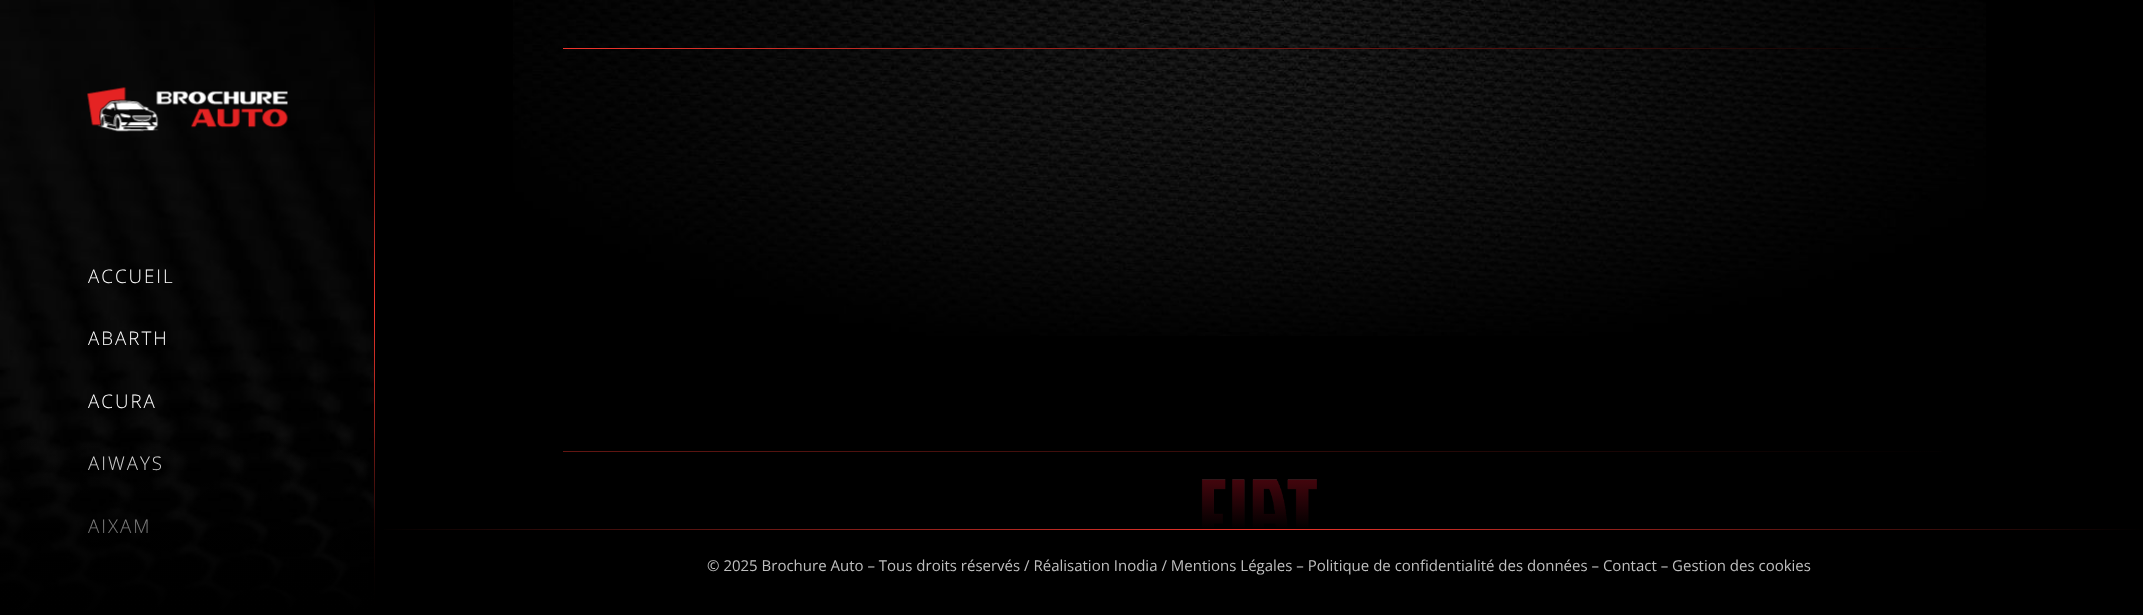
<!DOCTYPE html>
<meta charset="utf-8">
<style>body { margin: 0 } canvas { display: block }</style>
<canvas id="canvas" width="2143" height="615"></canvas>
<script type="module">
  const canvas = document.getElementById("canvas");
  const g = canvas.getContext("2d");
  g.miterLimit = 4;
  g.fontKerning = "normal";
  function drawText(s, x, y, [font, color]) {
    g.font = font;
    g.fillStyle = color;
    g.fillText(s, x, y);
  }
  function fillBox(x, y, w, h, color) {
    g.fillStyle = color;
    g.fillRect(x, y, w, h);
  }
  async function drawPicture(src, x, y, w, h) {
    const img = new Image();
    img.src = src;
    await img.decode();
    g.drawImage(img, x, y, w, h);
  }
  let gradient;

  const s1 = ["300 18.75px Open Sans", "#FFFFFF"];
  const s2 = ["15px Open Sans", "#BFBFBF"];

  fillBox(0, 0, 2143, 615, "#000000");
  await drawPicture("pic1.png", 0, 0, 374, 614);
  await drawPicture("pic2.png", 87, 87, 201, 45);
  g.letterSpacing = "2px";
  drawText("ACCUEIL", 88, 283, s1);
  drawText("ABARTH", 88, 345, s1);
  drawText("ACURA", 88, 408, s1);
  drawText("AIWAYS", 88, 470, s1);
  drawText("AIXAM", 88, 533, s1);
  gradient = g.createLinearGradient(374, 615, 374, 0);
  gradient.addColorStop(0, "#000000");
  gradient.addColorStop(0.5, "#F0352C");
  gradient.addColorStop(1, "#000000");
  g.fillStyle = gradient;
  g.fillRect(374, 0, 1, 615);
  gradient = g.createLinearGradient(188, 615, 188, 428);
  gradient.addColorStop(0, "#000000");
  gradient.addColorStop(1, "rgba(0, 0, 0, 0)");
  g.fillStyle = gradient;
  g.fillRect(0, 432, 375, 182);
  await drawPicture("pic3.png", 513, 0, 1473, 336);
  gradient = g.createLinearGradient(563, 48, 1956, 48);
  gradient.addColorStop(0, "#F0352C");
  gradient.addColorStop(1, "#000000");
  g.fillStyle = gradient;
  g.fillRect(563, 48, 1393, 1);
  gradient = g.createLinearGradient(563, 452, 1956, 452);
  gradient.addColorStop(0, "#F0352C");
  gradient.addColorStop(1, "#000000");
  g.fillStyle = gradient;
  g.fillRect(563, 451, 1379, 1);
  await drawPicture("pic4.png", 1201, 479, 116, 49);
  gradient = g.createLinearGradient(1259, 529, 1259, 341);
  gradient.addColorStop(0, "#000000");
  gradient.addColorStop(1, "rgba(0, 0, 0, 0)");
  g.fillStyle = gradient;
  g.fillRect(563, 451, 1367, 77);
  gradient = g.createLinearGradient(375, 529, 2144, 529);
  gradient.addColorStop(0, "#000000");
  gradient.addColorStop(0.5, "#F0352C");
  gradient.addColorStop(1, "#000000");
  g.fillStyle = gradient;
  g.fillRect(384, 529, 1759, 1);
  g.letterSpacing = "0px";
  drawText("© 2025 Brochure Auto – Tous droits réservés / Réalisation Inodia / Mentions Légales – Politique de confidentialité des données – Contact – Gestion des cookies", 707, 571, s2);
</script>
